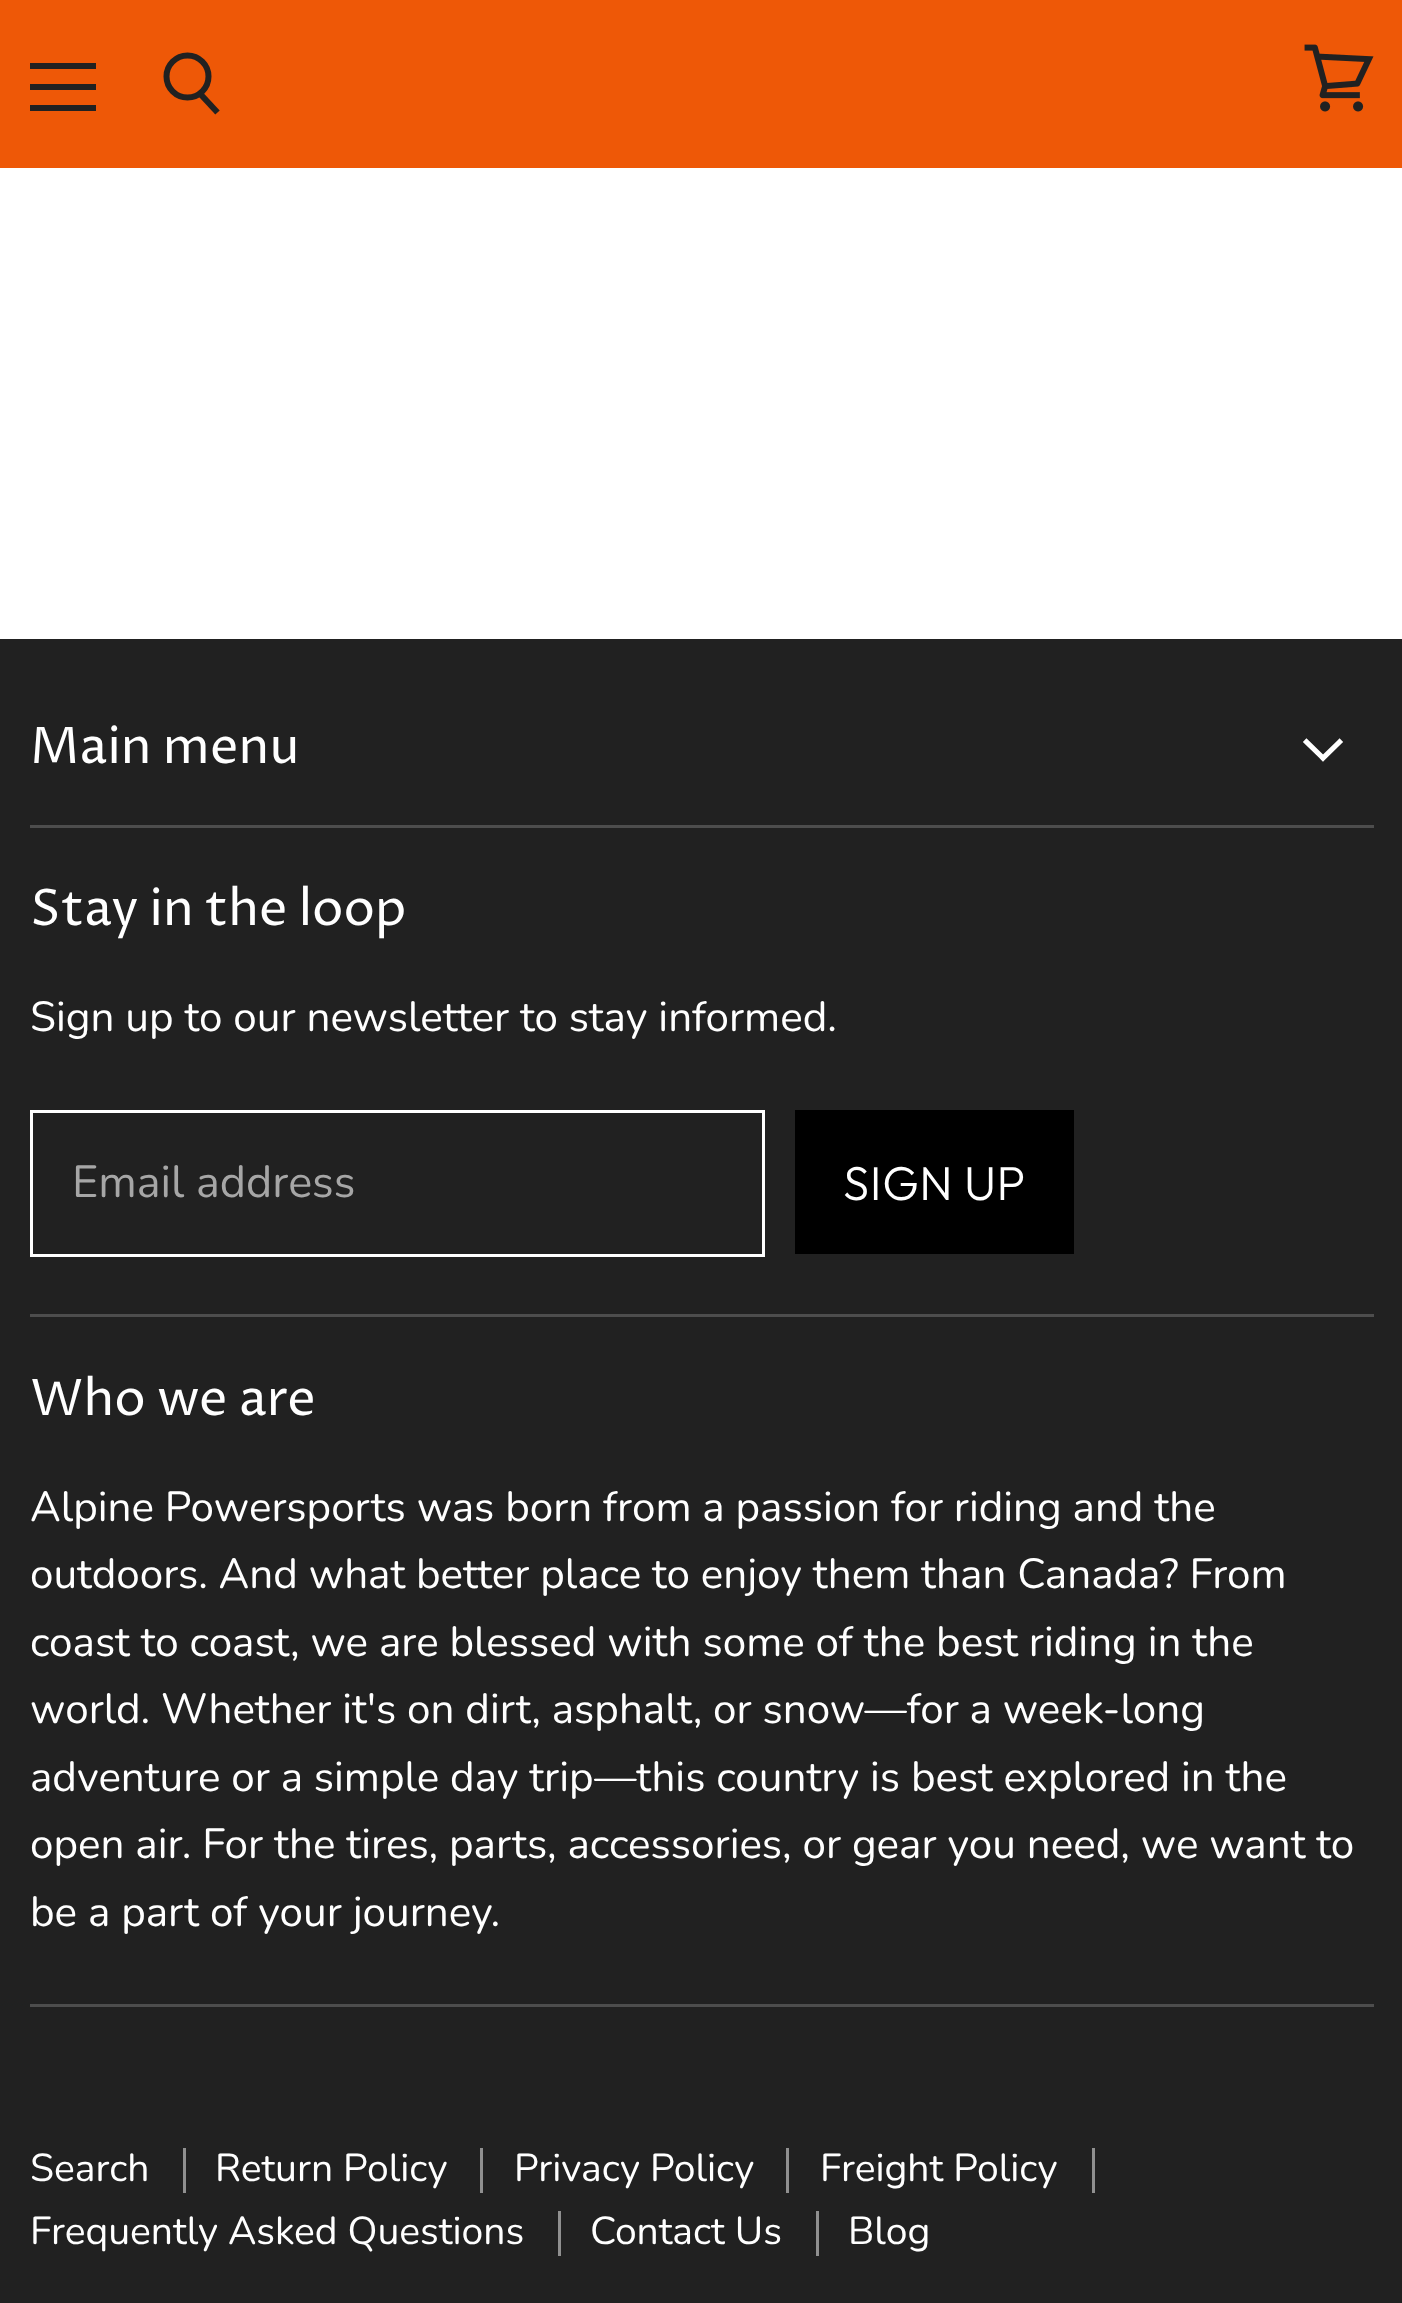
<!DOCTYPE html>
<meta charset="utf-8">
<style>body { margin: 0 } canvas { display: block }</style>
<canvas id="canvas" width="1402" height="2303"></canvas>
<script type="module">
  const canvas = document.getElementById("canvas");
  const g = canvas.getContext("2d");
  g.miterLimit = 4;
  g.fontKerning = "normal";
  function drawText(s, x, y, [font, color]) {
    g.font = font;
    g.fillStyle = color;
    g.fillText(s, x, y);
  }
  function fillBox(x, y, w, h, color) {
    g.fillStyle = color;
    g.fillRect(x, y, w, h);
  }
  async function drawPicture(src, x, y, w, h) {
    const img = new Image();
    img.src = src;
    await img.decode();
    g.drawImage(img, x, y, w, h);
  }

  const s1 = ["50.25px Proza Libre", "#FFFFFF"];
  const s2 = ["42.2px Nunito", "#FFFFFF"];
  const s3 = ["45px Nunito", "#A6A6A6"];
  const s4 = ["300 47.5px Outfit", "#FFFFFF"];
  const s5 = ["39px Nunito", "#FFFFFF"];

  fillBox(0, 0, 1402, 2303, "#FFFFFF");
  fillBox(0, 0, 1402, 168, "#EE5807");
  fillBox(30, 63, 66, 6, "#212121");
  fillBox(30, 84, 66, 6, "#212121");
  fillBox(30, 105, 66, 6, "#212121");
  g.beginPath();
  g.moveTo(198, 91.5);
  g.lineTo(217.5, 112.5);
  g.strokeStyle = "#212121";
  g.lineWidth = 6;
  g.stroke();
  g.beginPath();
  g.arc(187.5, 76.5, 21, 0, Math.PI * 2);
  g.stroke();
  await drawPicture("pic1.png", 1304, 44, 70, 68);
  fillBox(0, 639, 1402, 1664, "#212121");
  fillBox(30, 825, 1344, 3, "#4D4D4D");
  drawText("Main menu", 30, 763, s1);
  g.beginPath();
  g.moveTo(1323, 758);
  g.lineTo(1339.5, 742);
  g.moveTo(1323, 758);
  g.lineTo(1306.5, 742);
  g.strokeStyle = "#FFFFFF";
  g.lineWidth = 5.2;
  g.lineCap = "square";
  g.stroke();
  fillBox(30, 1314, 1344, 3, "#4D4D4D");
  drawText("Stay in the loop", 30, 925, s1);
  drawText("Sign up to our newsletter to stay informed.", 30, 1031, s2);
  g.lineWidth = 3;
  g.strokeRect(31.5, 1111.5, 732, 144);
  drawText("Email address", 72, 1197, s3);
  fillBox(795, 1110, 279, 144, "#000000");
  g.letterSpacing = "0.5px";
  drawText("SIGN UP", 843, 1200, s4);
  fillBox(30, 2004, 1344, 3, "#4D4D4D");
  g.letterSpacing = "0px";
  drawText("Who we are", 30, 1415, s1);
  g.wordSpacing = "-0.1px";
  drawText("Alpine Powersports was born from a passion for riding and the", 30, 1521, s2);
  drawText("outdoors. And what better place to enjoy them than Canada? From", 30, 1588, s2);
  g.wordSpacing = "0px";
  drawText("coast to coast, we are blessed with some of the best riding in the", 30, 1656, s2);
  g.wordSpacing = "-0.1px";
  drawText("world. Whether it's on dirt, asphalt, or snow—for a week-long", 30, 1723, s2);
  drawText("adventure or a simple day trip—this country is best explored in the", 30, 1791, s2);
  g.wordSpacing = "0px";
  drawText("open air. For the tires, parts, accessories, or gear you need, we want to", 30, 1858, s2);
  drawText("be a part of your journey.", 30, 1926, s2);
  fillBox(183, 2148, 3, 45, "#909090");
  drawText("Search", 30, 2181, s5);
  fillBox(480, 2148, 3, 45, "#909090");
  drawText("Return Policy", 215, 2181, s5);
  fillBox(786, 2148, 3, 45, "#909090");
  drawText("Privacy Policy", 514, 2181, s5);
  fillBox(1092, 2148, 3, 45, "#909090");
  drawText("Freight Policy", 820, 2181, s5);
  fillBox(558, 2211, 3, 45, "#909090");
  drawText("Frequently Asked Questions", 30, 2244, s5);
  fillBox(816, 2211, 3, 45, "#909090");
  drawText("Contact Us", 590, 2244, s5);
  drawText("Blog", 848, 2244, s5);
</script>
